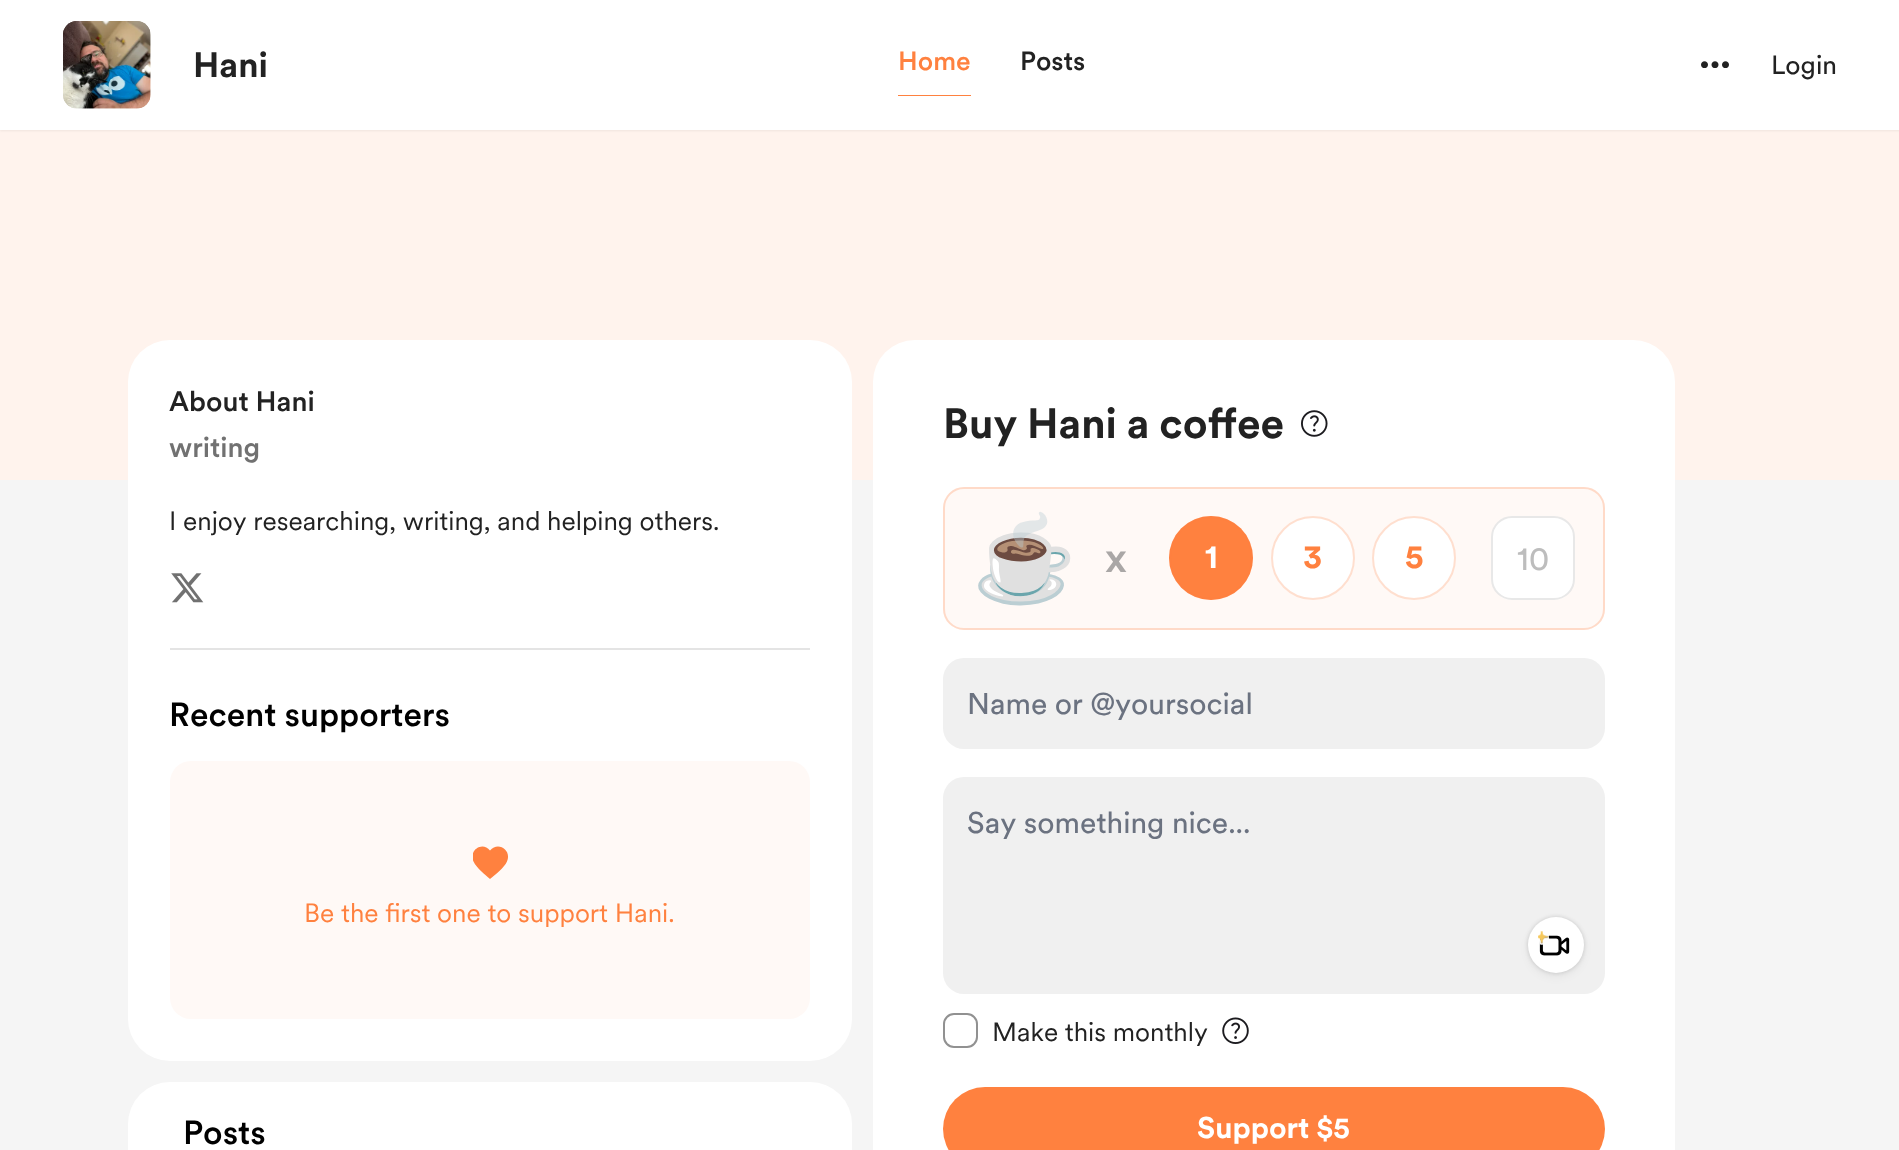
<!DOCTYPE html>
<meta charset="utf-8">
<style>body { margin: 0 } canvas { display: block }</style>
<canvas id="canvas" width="1899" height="1150"></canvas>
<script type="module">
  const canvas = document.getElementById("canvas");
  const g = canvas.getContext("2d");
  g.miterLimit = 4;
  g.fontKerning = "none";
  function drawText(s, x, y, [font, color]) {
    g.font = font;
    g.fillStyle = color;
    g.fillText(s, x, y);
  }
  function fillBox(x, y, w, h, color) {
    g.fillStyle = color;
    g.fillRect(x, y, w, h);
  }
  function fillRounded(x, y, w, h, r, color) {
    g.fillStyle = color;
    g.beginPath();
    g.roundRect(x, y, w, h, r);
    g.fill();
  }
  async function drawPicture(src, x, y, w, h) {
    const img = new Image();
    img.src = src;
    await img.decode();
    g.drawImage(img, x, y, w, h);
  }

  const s1 = ["bold 35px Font", "#222222"];
  const s2 = ["500 26.25px Font", "#FF813F"];
  const s3 = ["500 26.25px Font", "#222222"];
  const s4 = ["26.25px Font", "#222222"];
  const s5 = ["500 28px Font", "#222222"];
  const s6 = ["500 28px Font", "#717171"];
  const s7 = ["26.25px 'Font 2'", "#222222"];
  const s8 = ["500 33.25px Font", "#000000"];
  const s9 = ["26.25px 'Font 2'", "#FF813F"];
  const s10 = ["bold 42px Font", "#222222"];
  const s11 = ["84px Noto Color Emoji", "#000000"];
  const s12 = ["500 42px Font", "#AAA7A6"];
  const s13 = ["bold 33.25px Font", "#FFFFFF"];
  const s14 = ["bold 33.25px Font", "#FF813F"];
  const s15 = ["33.25px Font", "#BDBDBD"];
  const s16 = ["29.75px Font", "#6B7280"];
  const s17 = ["bold 29.75px Font", "#FFFFFF"];

  fillBox(0, 0, 1899, 1150, "#F5F5F5");
  fillBox(0, 130, 1899, 350, "#FFF3ED");
  g.fillStyle = "rgba(0, 0, 0, 0.06)";
  g.filter = "blur(1px)";
  g.beginPath();
  g.rect(0, 2, 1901, 129);
  g.fill();
  g.filter = "none";
  fillBox(0, 0, 1899, 130, "#FFFFFF");
  await drawPicture("pic1.png", 63, 21, 88, 88);
  await drawPicture("pic2.png", 63, 21, 88, 88);
  drawText("Hani", 193, 77, s1);
  drawText("Home", 898, 70, s2);
  fillBox(898, 95, 73, 1, "#FF813F");
  drawText("Posts", 1020, 70, s3);
  await drawPicture("pic3.png", 1701, 61, 28, 7);
  drawText("Login", 1771, 74, s4);
  fillRounded(128, 340, 724, 721, 42, "#FFFFFF");
  fillBox(170, 648, 640, 2, "#E4E4E4");
  drawText("About Hani", 169, 411, s5);
  drawText("writing", 169, 457, s6);
  drawText("I enjoy researching, writing, and helping others.", 169, 530, s7);
  await drawPicture("pic4.png", 171, 573, 33, 30);
  drawText("Recent supporters", 169, 726, s8);
  fillRounded(170, 761, 640, 258, 21, "#FFF9F6");
  g.save();
  g.beginPath();
  g.rect(473, 845, 36, 35);
  g.clip();
  g.fillStyle = "#FF813F";
  g.beginPath();
  g.moveTo(490, 879);
  g.bezierCurveTo(485, 874.5, 476.5, 868, 473.5, 861.5);
  g.bezierCurveTo(468.5, 850, 482.5, 841, 490, 850.5);
  g.bezierCurveTo(498, 841, 512, 850, 507, 861.5);
  g.bezierCurveTo(504, 868, 495.5, 874.5, 490, 879);
  g.closePath();
  g.fill();
  g.restore();
  drawText("Be the first one to support Hani.", 304, 922, s9);
  fillRounded(128, 1082, 724, 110, 42, "#FFFFFF");
  drawText("Posts", 183, 1144, s8);
  fillRounded(873, 340, 802, 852, 42, "#FFFFFF");
  drawText("Buy Hani a coffee", 943, 438, s10);
  await drawPicture("pic5.png", 1301, 410, 27, 27);
  fillRounded(943, 487, 662, 143, 21, "#FFF9F6");
  g.beginPath();
  g.roundRect(944, 488, 660, 141, 20);
  g.strokeStyle = "rgba(255, 129, 63, 0.25)";
  g.lineWidth = 2;
  g.stroke();
  drawText("☕", 972, 588, s11);
  drawText("x", 1105, 572, s12);
  g.fillStyle = "#FF813F";
  g.beginPath();
  g.arc(1211, 558, 42, 0, Math.PI * 2);
  g.fill();
  g.beginPath();
  g.arc(1211, 558, 41, 0, Math.PI * 2);
  g.stroke();
  drawText("1", 1205, 568, s13);
  g.beginPath();
  g.arc(1313, 558, 42, 0, Math.PI * 2);
  g.fill();
  g.beginPath();
  g.arc(1313, 558, 41, 0, Math.PI * 2);
  g.stroke();
  drawText("3", 1303, 568, s14);
  g.fillStyle = "#FFFFFF";
  g.beginPath();
  g.arc(1414, 558, 42, 0, Math.PI * 2);
  g.fill();
  g.beginPath();
  g.arc(1414, 558, 41, 0, Math.PI * 2);
  g.stroke();
  drawText("5", 1405, 568, s14);
  fillRounded(1491, 516, 84, 84, 21, "#FFFFFF");
  g.beginPath();
  g.roundRect(1492, 517, 82, 82, 20);
  g.strokeStyle = "rgba(34, 34, 34, 0.1)";
  g.stroke();
  drawText("10", 1517, 570, s15);
  fillRounded(943, 658, 662, 91, 21, "#F0F0F0");
  drawText("Name or @yoursocial", 967, 714, s16);
  fillRounded(943, 777, 662, 217, 21, "#F0F0F0");
  drawText("Say something nice...", 967, 833, s16);
  g.fillStyle = "rgba(0, 0, 0, 0.05)";
  g.filter = "blur(4.5px)";
  g.beginPath();
  g.roundRect(1528, 921, 56, 56, 28);
  g.fill();
  g.filter = "none";
  g.fillStyle = "rgba(0, 0, 0, 0.15)";
  g.filter = "blur(2px)";
  g.beginPath();
  g.roundRect(1528, 917, 56, 56, 28);
  g.fill();
  g.filter = "none";
  g.fillStyle = "#FFFFFF";
  g.beginPath();
  g.arc(1556, 945, 28, 0, Math.PI * 2);
  g.fill();
  await drawPicture("pic7.png", 1539, 935, 31, 21);
  await drawPicture("pic6.png", 1538, 931, 11, 14);
  g.beginPath();
  g.roundRect(944, 1014, 33, 33, 10);
  g.strokeStyle = "#919191";
  g.stroke();
  drawText("Make this monthly", 992, 1041, s7);
  await drawPicture("pic8.png", 1222, 1017, 27, 27);
  fillRounded(943, 1087, 662, 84, 42, "#FF813F");
  drawText("Support $5", 1197, 1138, s17);
</script>
